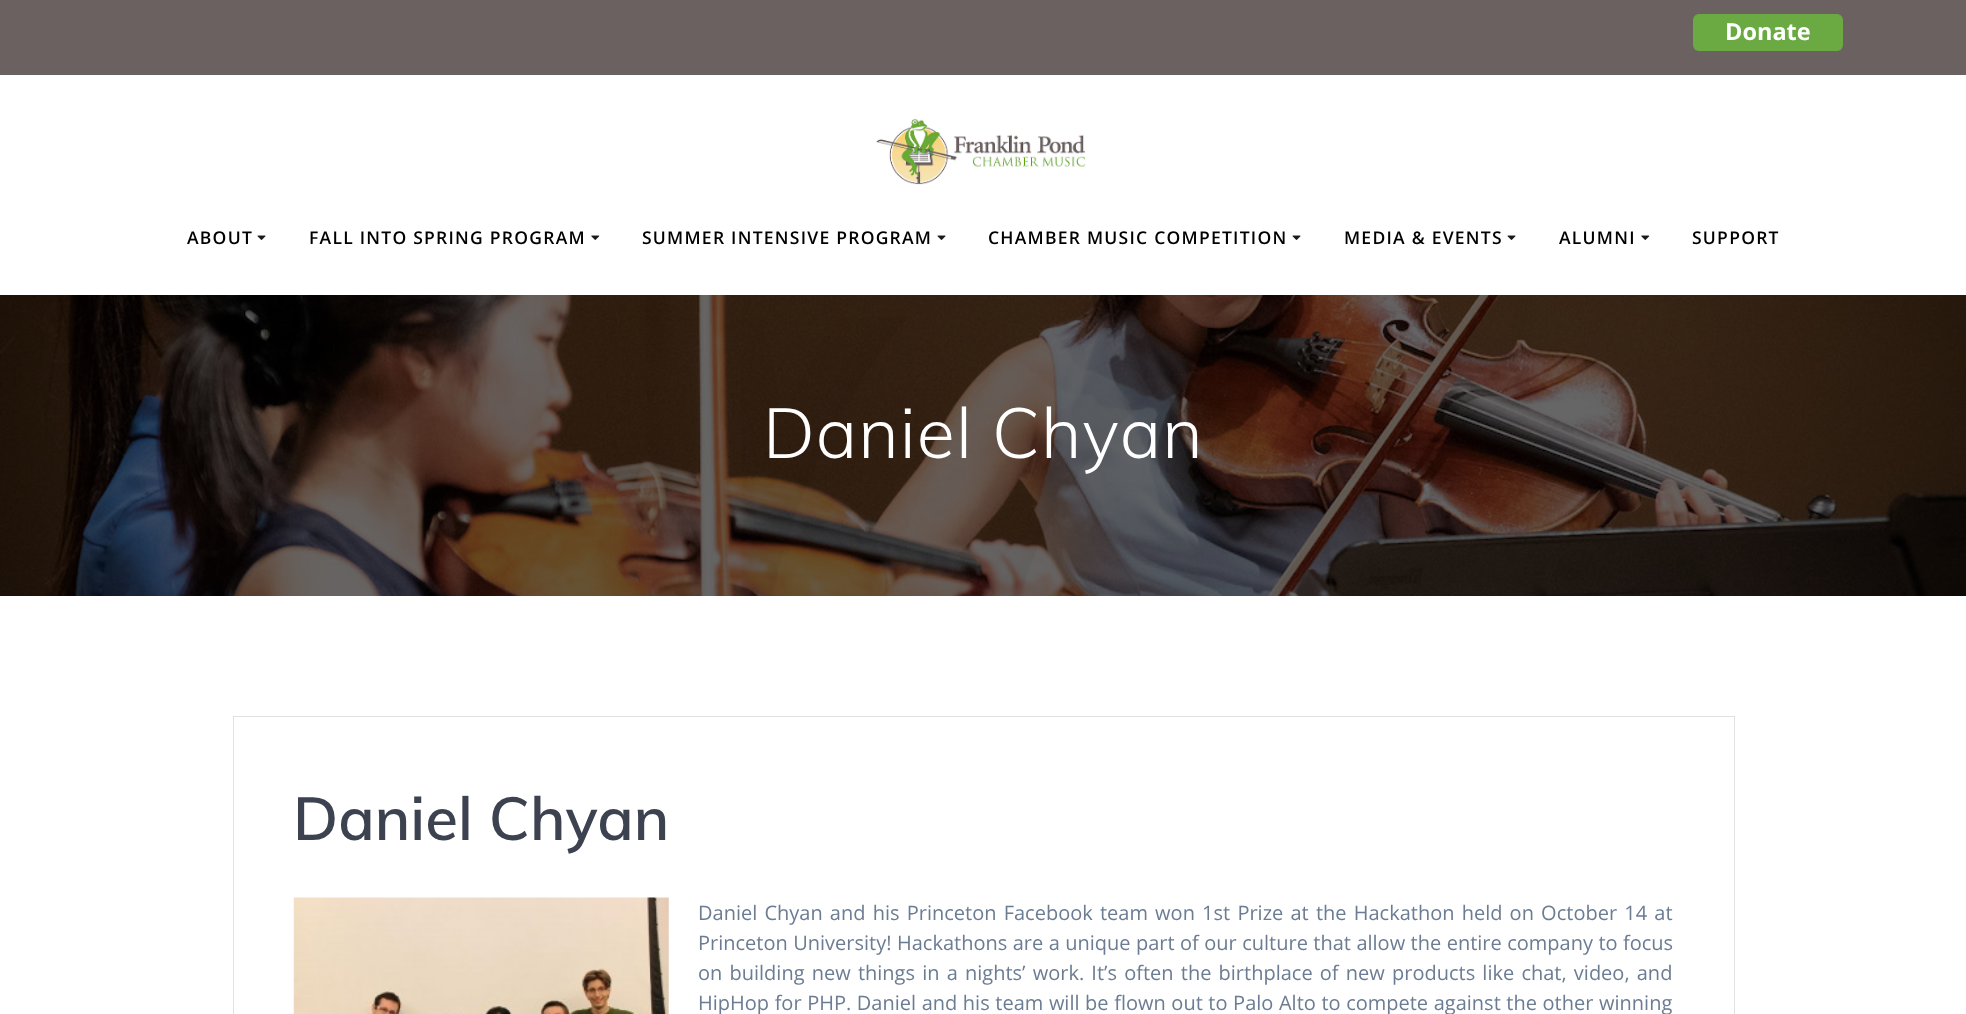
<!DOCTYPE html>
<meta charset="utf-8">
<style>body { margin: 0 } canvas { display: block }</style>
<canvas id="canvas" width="1966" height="1014"></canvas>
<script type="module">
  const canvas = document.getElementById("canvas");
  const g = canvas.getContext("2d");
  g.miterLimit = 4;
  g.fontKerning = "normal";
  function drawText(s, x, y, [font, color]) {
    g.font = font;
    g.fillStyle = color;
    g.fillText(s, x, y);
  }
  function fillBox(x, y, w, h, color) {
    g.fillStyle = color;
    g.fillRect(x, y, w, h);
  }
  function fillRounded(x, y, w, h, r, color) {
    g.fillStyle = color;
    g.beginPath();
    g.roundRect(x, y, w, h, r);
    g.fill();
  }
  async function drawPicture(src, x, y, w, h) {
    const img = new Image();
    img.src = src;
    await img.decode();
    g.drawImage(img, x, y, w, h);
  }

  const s1 = ["bold 23.5px Open Sans", "#FFFFFF"];
  const s2 = ["600 17.5px Open Sans", "#000000"];
  const s3 = ["300 70px Muli", "#FFFFFF"];
  const s4 = ["600 60px Muli", "#3C424F"];
  const s5 = ["20px Open Sans", "#6B7C93"];

  fillBox(0, 0, 1966, 1014, "#FFFFFF");
  fillBox(0, 0, 1966, 75, "#6B6160");
  fillRounded(1693, 14, 150, 37, 6, "#6BAA43");
  drawText("Donate", 1725, 40, s1);
  await drawPicture("pic1.png", 876, 118, 210, 67);
  g.letterSpacing = "1.25px";
  drawText("ABOUT", 187, 244, s2);
  await drawPicture("pic2.png", 257, 235, 9, 5);
  drawText("FALL INTO SPRING PROGRAM", 309, 244, s2);
  await drawPicture("pic3.png", 591, 235, 9, 5);
  drawText("SUMMER INTENSIVE PROGRAM", 642, 244, s2);
  await drawPicture("pic2.png", 937, 235, 9, 5);
  drawText("CHAMBER MUSIC COMPETITION", 988, 244, s2);
  await drawPicture("pic2.png", 1292, 235, 9, 5);
  drawText("MEDIA & EVENTS", 1344, 244, s2);
  await drawPicture("pic2.png", 1507, 235, 9, 5);
  drawText("ALUMNI", 1559, 244, s2);
  await drawPicture("pic3.png", 1641, 235, 9, 5);
  drawText("SUPPORT", 1692, 244, s2);
  await drawPicture("pic4.png", 0, 295, 1966, 301);
  await drawPicture("pic5.png", 741, 317, 474, 279);
  g.letterSpacing = "1.1px";
  drawText("Daniel Chyan", 763, 458, s3);
  g.strokeStyle = "#E0E1E1";
  g.strokeRect(233.5, 716.5, 1501, 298);
  g.letterSpacing = "0px";
  drawText("Daniel Chyan", 293, 840, s4);
  await drawPicture("pic6.png", 293, 897, 376, 117);
  g.wordSpacing = "2px";
  drawText("Daniel Chyan and his Princeton Facebook team won 1st Prize at the Hackathon held on October 14 at", 698, 920, s5);
  g.wordSpacing = "0.25px";
  drawText("Princeton University! Hackathons are a unique part of our culture that allow the entire company to focus", 698, 950, s5);
  g.wordSpacing = "2px";
  drawText("on building new things in a nights’ work. It’s often the birthplace of new products like chat, video, and", 698, 980, s5);
  g.wordSpacing = "0.4px";
  drawText("HipHop for PHP. Daniel and his team will be flown out to Palo Alto to compete against the other winning", 698, 1010, s5);
</script>
